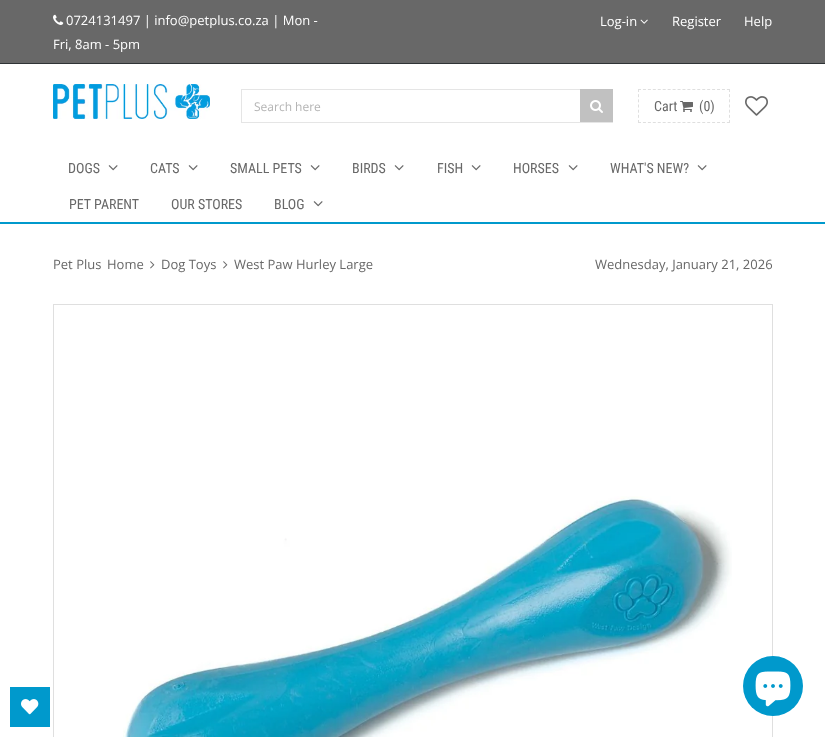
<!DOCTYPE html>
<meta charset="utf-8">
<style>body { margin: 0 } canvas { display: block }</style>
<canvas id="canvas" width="825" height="737"></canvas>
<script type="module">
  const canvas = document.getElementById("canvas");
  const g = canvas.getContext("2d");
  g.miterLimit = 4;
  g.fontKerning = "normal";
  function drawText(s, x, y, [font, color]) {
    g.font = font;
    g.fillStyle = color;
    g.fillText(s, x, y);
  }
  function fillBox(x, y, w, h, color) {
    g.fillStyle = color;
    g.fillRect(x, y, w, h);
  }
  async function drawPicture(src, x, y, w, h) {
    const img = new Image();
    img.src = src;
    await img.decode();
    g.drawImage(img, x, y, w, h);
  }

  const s1 = ["13px Open Sans", "#FFFFFF"];
  const s2 = ["12px Open Sans", "#B4B4B4"];
  const s3 = ["14px Roboto Condensed", "#686868"];
  const s4 = ["13px Open Sans", "#686868"];

  fillBox(0, 0, 825, 737, "#FFFFFF");
  fillBox(0, 0, 825, 63, "#686868");
  fillBox(0, 63, 825, 1, "#2F3436");
  await drawPicture("pic1.png", 53, 14, 11, 11);
  drawText("0724131497 | info@petplus.co.za | Mon -", 66, 25, s1);
  drawText("Fri, 8am - 5pm", 53, 49, s1);
  drawText("Log-in", 600, 26, s1);
  await drawPicture("pic2.png", 640, 19, 8, 5);
  drawText("Register", 672, 26, s1);
  drawText("Help", 744, 26, s1);
  fillBox(0, 222, 825, 2, "#0099CC");
  await drawPicture("pic3.png", 53, 84, 157, 35);
  g.strokeStyle = "#E5E5E5";
  g.strokeRect(241.5, 89.5, 371, 33);
  drawText("Search here", 254, 111, s2);
  fillBox(580, 89, 33, 33, "#C1C1C1");
  await drawPicture("pic4.png", 590, 100, 13, 13);
  g.beginPath();
  g.moveTo(638, 89.5);
  g.lineTo(730, 89.5);
  g.strokeStyle = "#DFDFDF";
  g.setLineDash([3, 1.94]);
  g.stroke();
  g.beginPath();
  g.moveTo(729.5, 89);
  g.lineTo(729.5, 123);
  g.setLineDash([3, 2.17]);
  g.stroke();
  g.beginPath();
  g.moveTo(638, 122.5);
  g.lineTo(730, 122.5);
  g.setLineDash([3, 1.94]);
  g.stroke();
  g.beginPath();
  g.moveTo(638.5, 89);
  g.lineTo(638.5, 123);
  g.setLineDash([3, 2.17]);
  g.stroke();
  drawText("Cart", 654, 111, s3);
  await drawPicture("pic5.png", 680, 101, 13, 11);
  drawText("(0)", 699, 111, s3);
  await drawPicture("pic6.png", 745, 96, 23, 20);
  drawText("DOGS", 68, 173, s3);
  await drawPicture("pic7.png", 108, 165, 10, 6);
  drawText("CATS", 150, 173, s3);
  await drawPicture("pic7.png", 188, 165, 10, 6);
  drawText("SMALL PETS", 230, 173, s3);
  await drawPicture("pic7.png", 310, 165, 10, 6);
  drawText("BIRDS", 352, 173, s3);
  await drawPicture("pic7.png", 394, 165, 10, 6);
  drawText("FISH", 437, 173, s3);
  await drawPicture("pic7.png", 471, 165, 10, 6);
  drawText("HORSES", 513, 173, s3);
  await drawPicture("pic7.png", 568, 165, 10, 6);
  drawText("WHAT'S NEW?", 610, 173, s3);
  await drawPicture("pic7.png", 697, 165, 10, 6);
  drawText("PET PARENT", 69, 209, s3);
  drawText("OUR STORES", 171, 209, s3);
  drawText("BLOG", 274, 209, s3);
  await drawPicture("pic7.png", 313, 201, 10, 6);
  drawText("Pet Plus", 53, 269, s4);
  drawText("Home", 107, 269, s4);
  await drawPicture("pic8.png", 150, 261, 5, 8);
  drawText("Dog Toys", 161, 269, s4);
  await drawPicture("pic8.png", 223, 261, 5, 8);
  drawText("West Paw Hurley Large", 234, 269, s4);
  drawText("Wednesday, January 21, 2026", 595, 269, s4);
  g.setLineDash([]);
  g.strokeRect(53.5, 304.5, 719, 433);
  await drawPicture("pic9.png", 123, 496, 609, 241);
  fillBox(10, 687, 40, 40, "#0099CC");
  await drawPicture("pic10.png", 21, 699, 18, 16);
  g.beginPath();
  g.arc(773, 686, 30, 0, Math.PI * 2);
  g.fill();
  await drawPicture("pic11.png", 755, 671, 36, 36);
</script>
